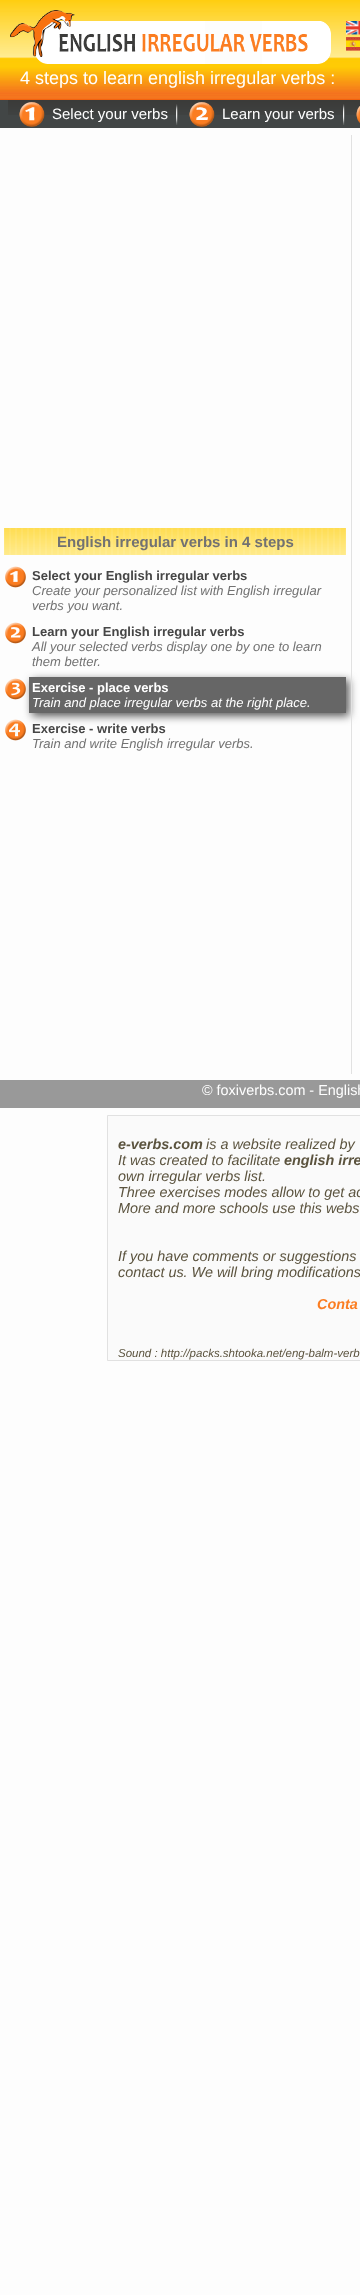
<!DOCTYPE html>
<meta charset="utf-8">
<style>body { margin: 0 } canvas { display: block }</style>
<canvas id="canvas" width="360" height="2295"></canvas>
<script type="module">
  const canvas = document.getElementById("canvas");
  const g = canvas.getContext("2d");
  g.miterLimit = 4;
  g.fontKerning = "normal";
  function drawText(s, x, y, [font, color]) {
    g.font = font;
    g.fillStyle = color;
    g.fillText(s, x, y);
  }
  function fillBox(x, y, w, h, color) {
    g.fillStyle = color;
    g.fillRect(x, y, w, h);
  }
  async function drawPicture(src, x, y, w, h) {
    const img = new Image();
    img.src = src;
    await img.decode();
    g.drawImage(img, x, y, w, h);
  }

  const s1 = ["18px Liberation Sans", "#FFFFFF"];
  const s2 = ["15px Liberation Sans", "#FFFFFF"];
  const s3 = ["bold 15px Liberation Sans", "#727272"];
  const s4 = ["bold 13px Liberation Sans", "#464646"];
  const s5 = ["italic 13px Liberation Sans", "#727272"];
  const s6 = ["bold 13px Liberation Sans", "#FFFFFF"];
  const s7 = ["italic 13px Liberation Sans", "#FFFFFF"];
  const s8 = ["14.4px Liberation Sans", "#FFFFFF"];
  const s9 = ["italic bold 14.4px Liberation Sans", "#5B533E"];
  const s10 = ["italic 14.4px Liberation Sans", "#5B533E"];
  const s11 = ["italic bold 14.4px Liberation Sans", "#FB7D21"];
  const s12 = ["italic 11.5px Liberation Sans", "#5B533E"];

  fillBox(0, 0, 360, 2295, "#FDFDFD");
  await drawPicture("pic1.png", 0, 0, 360, 128);
  await drawPicture("pic3.png", 34, 21, 297, 43);
  await drawPicture("pic2.png", 10, 10, 65, 47);
  await drawPicture("pic4.png", 346, 21, 14, 30);
  drawText("4 steps to learn english irregular verbs :", 20, 84, s1);
  await drawPicture("pic5.png", 8, 100, 352, 15);
  await drawPicture("pic6.png", 176, 104, 2, 21);
  await drawPicture("pic7.png", 19, 102, 26, 25);
  drawText("Select your verbs", 52, 119, s2);
  await drawPicture("pic8.png", 343, 104, 2, 21);
  await drawPicture("pic9.png", 189, 102, 26, 25);
  drawText("Learn your verbs", 222, 119, s2);
  await drawPicture("pic10.png", 356, 106, 4, 17);
  await drawPicture("pic11.png", 4, 528, 342, 27);
  drawText("English irregular verbs in 4 steps", 57, 547, s3);
  await drawPicture("pic12.png", 5, 566, 21, 22);
  drawText("Select your English irregular verbs", 32, 580, s4);
  drawText("Create your personalized list with English irregular", 32, 595, s5);
  drawText("verbs you want.", 32, 610, s5);
  await drawPicture("pic13.png", 5, 622, 21, 22);
  drawText("Learn your English irregular verbs", 32, 636, s4);
  drawText("All your selected verbs display one by one to learn", 32, 651, s5);
  drawText("them better.", 32, 666, s5);
  g.fillStyle = "#555555";
  g.filter = "blur(4px)";
  g.beginPath();
  g.rect(32, 680, 317, 36);
  g.fill();
  g.filter = "none";
  await drawPicture("pic14.png", 5, 678, 21, 22);
  fillBox(29, 677, 317, 36, "#666666");
  drawText("Exercise - place verbs", 32, 692, s6);
  drawText("Train and place irregular verbs at the right place.", 32, 707, s7);
  await drawPicture("pic15.png", 5, 719, 21, 22);
  drawText("Exercise - write verbs", 32, 733, s4);
  drawText("Train and write English irregular verbs.", 32, 748, s5);
  fillBox(351, 135, 1, 939, "#E1E1E1");
  fillBox(0, 1080, 360, 28, "#999999");
  drawText("© foxiverbs.com - English", 202, 1095, s8);
  g.fillStyle = "#FAFAFA";
  g.beginPath();
  g.rect(107.5, 1115.5, 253, 245);
  g.fill();
  g.strokeStyle = "#E1E1E1";
  g.stroke();
  drawText("e-verbs.com", 118, 1149, s9);
  drawText("is a website realized by", 206, 1149, s10);
  drawText("It was created to facilitate", 118, 1165, s10);
  drawText("english irre", 284, 1165, s9);
  drawText("own irregular verbs list.", 118, 1181, s10);
  drawText("Three exercises modes allow to get ac", 118, 1197, s10);
  drawText("More and more schools use this webs", 118, 1213, s10);
  drawText("If you have comments or suggestions", 118, 1261, s10);
  drawText("contact us. We will bring modifications", 118, 1277, s10);
  drawText("Conta", 317, 1309, s11);
  drawText("Sound : http://packs.shtooka.net/eng-balm-verb", 118, 1357, s12);
</script>
